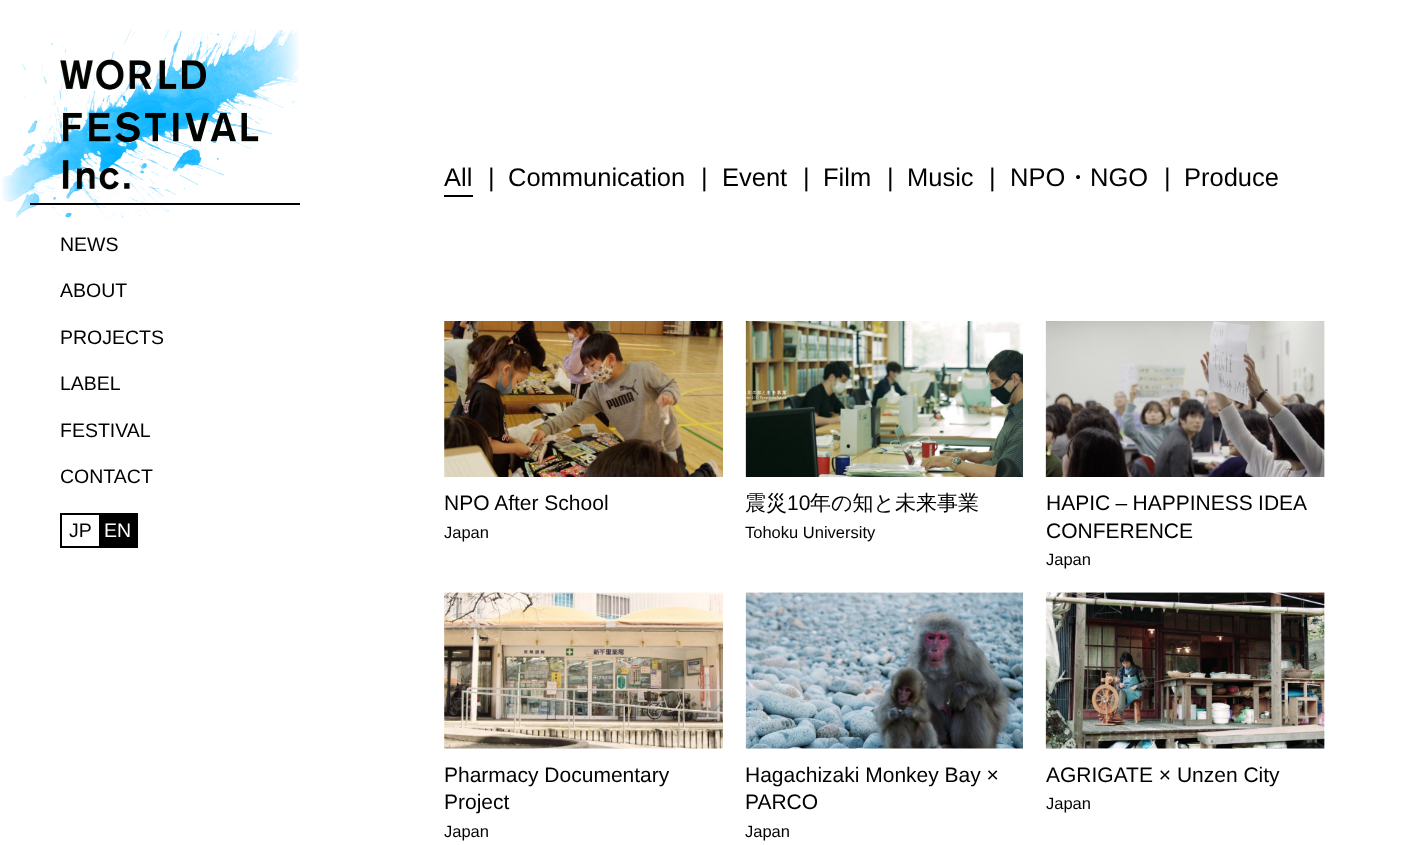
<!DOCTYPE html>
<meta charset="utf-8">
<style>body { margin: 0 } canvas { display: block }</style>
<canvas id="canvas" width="1423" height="845"></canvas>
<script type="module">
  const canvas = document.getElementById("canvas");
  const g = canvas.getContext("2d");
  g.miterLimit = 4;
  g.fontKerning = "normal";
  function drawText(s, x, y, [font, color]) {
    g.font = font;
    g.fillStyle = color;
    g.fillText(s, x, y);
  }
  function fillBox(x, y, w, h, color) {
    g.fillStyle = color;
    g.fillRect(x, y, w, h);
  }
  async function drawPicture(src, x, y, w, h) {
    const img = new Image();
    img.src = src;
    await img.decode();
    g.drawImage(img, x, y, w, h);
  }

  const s1 = ["19.5px Liberation Sans", "#000000"];
  const s2 = ["19.5px Liberation Sans", "#FFFFFF"];
  const s3 = ["25.5px Liberation Sans", "#000000"];
  const s4 = ["500 25.5px WenQuanYi Zen Hei", "#000000"];
  const s5 = ["21px Liberation Sans", "#000000"];
  const s6 = ["16.5px Liberation Sans", "#000000"];
  const s7 = ["500 21px WenQuanYi Zen Hei", "#000000"];

  fillBox(0, 0, 1423, 845, "#FFFFFF");
  await drawPicture("pic1.png", 2, 30, 297, 189);
  fillBox(30, 203, 270, 2, "#000000");
  drawText("NEWS", 60, 251, s1);
  drawText("ABOUT", 60, 297, s1);
  drawText("PROJECTS", 60, 344, s1);
  drawText("LABEL", 60, 390, s1);
  drawText("FESTIVAL", 60, 437, s1);
  drawText("CONTACT", 60, 483, s1);
  g.strokeStyle = "#000000";
  g.lineWidth = 2;
  g.strokeRect(61, 514, 76, 33);
  drawText("JP", 69, 537, s1);
  fillBox(99, 515, 37, 31, "#000000");
  drawText("EN", 104, 537, s2);
  drawText("All", 444, 186, s3);
  fillBox(444, 195, 29, 2, "#000000");
  drawText("|", 488, 186, s3);
  drawText("Communication", 508, 186, s3);
  drawText("|", 701, 186, s3);
  drawText("Event", 722, 186, s3);
  drawText("|", 803, 186, s3);
  drawText("Film", 823, 186, s3);
  drawText("|", 887, 186, s3);
  drawText("Music", 907, 186, s3);
  drawText("|", 989, 186, s3);
  drawText("NPO", 1010, 186, s3);
  drawText("・", 1065, 186, s4);
  drawText("NGO", 1090, 186, s3);
  drawText("|", 1164, 186, s3);
  drawText("Produce", 1184, 186, s3);
  await drawPicture("pic2.png", 444, 321, 279, 156);
  drawText("NPO After School", 444, 510, s5);
  drawText("Japan", 444, 538, s6);
  await drawPicture("pic3.png", 745, 321, 278, 156);
  drawText("震災", 745, 510, s7);
  drawText("10", 787, 510, s5);
  drawText("年の知と未来事業", 810, 510, s7);
  drawText("Tohoku University", 745, 538, s6);
  await drawPicture("pic4.png", 1045, 321, 280, 156);
  g.wordSpacing = "-0.5px";
  drawText("HAPIC – HAPPINESS IDEA", 1046, 510, s5);
  g.wordSpacing = "0px";
  drawText("CONFERENCE", 1046, 538, s5);
  drawText("Japan", 1046, 565, s6);
  await drawPicture("pic5.png", 444, 592, 279, 157);
  drawText("Pharmacy Documentary", 444, 782, s5);
  drawText("Project", 444, 809, s5);
  drawText("Japan", 444, 837, s6);
  await drawPicture("pic6.png", 745, 592, 278, 157);
  drawText("Hagachizaki Monkey Bay ×", 745, 782, s5);
  drawText("PARCO", 745, 809, s5);
  drawText("Japan", 745, 837, s6);
  await drawPicture("pic7.png", 1045, 592, 280, 157);
  drawText("AGRIGATE × Unzen City", 1046, 782, s5);
  drawText("Japan", 1046, 809, s6);
</script>
